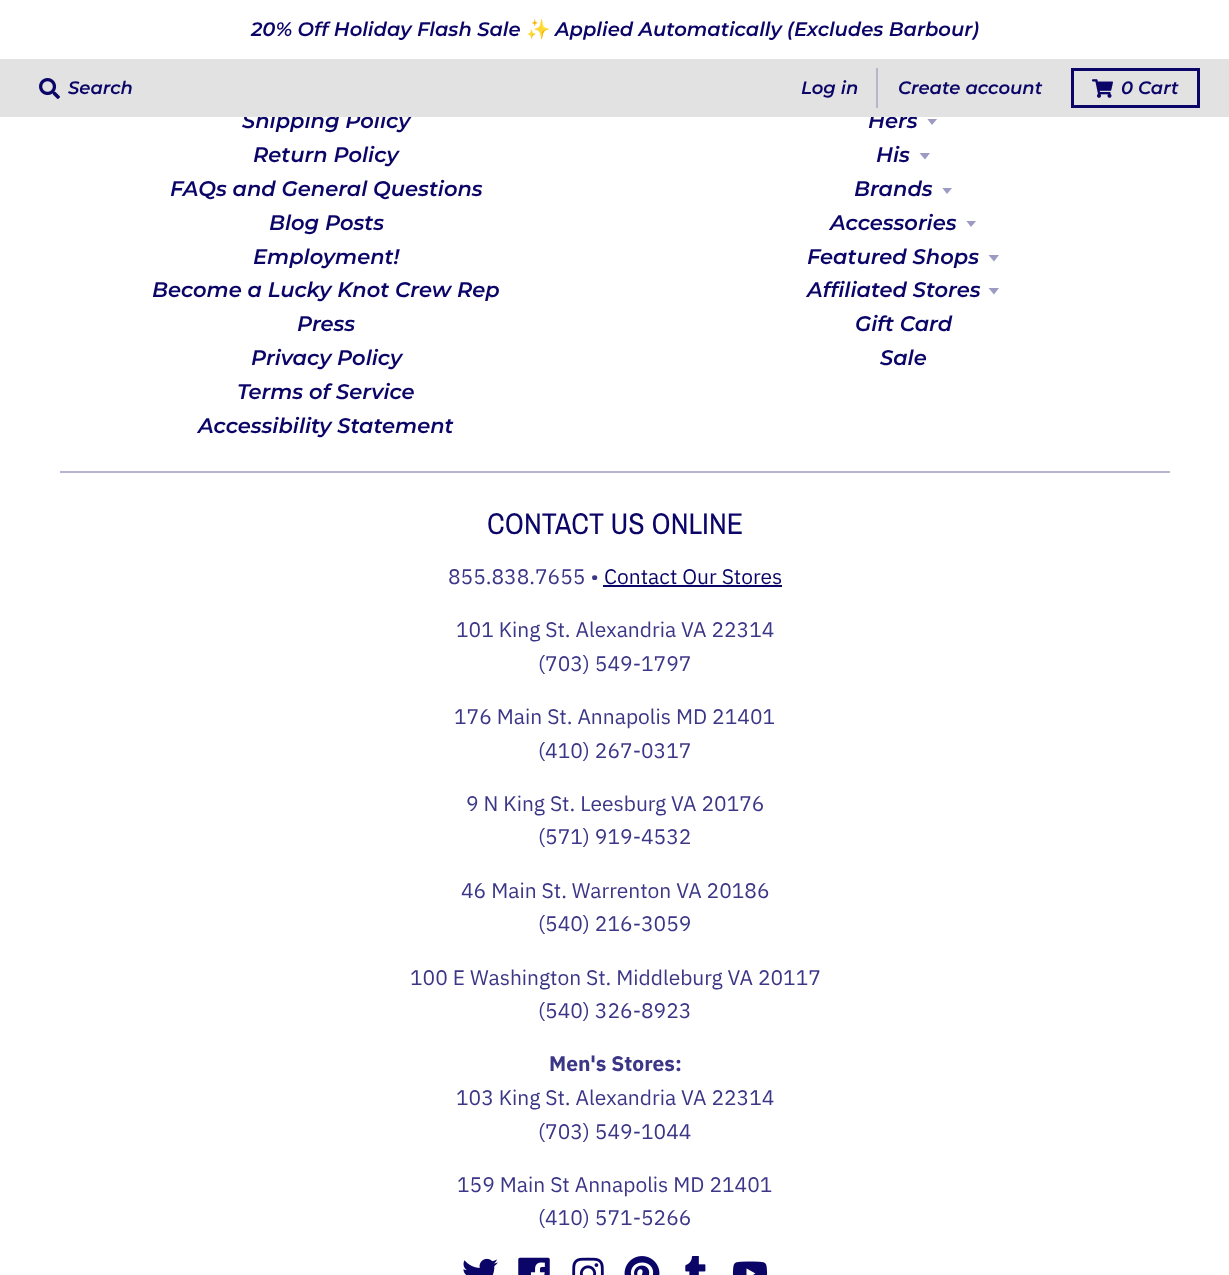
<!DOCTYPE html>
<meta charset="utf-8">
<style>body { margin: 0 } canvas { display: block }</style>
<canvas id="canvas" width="1229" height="1275"></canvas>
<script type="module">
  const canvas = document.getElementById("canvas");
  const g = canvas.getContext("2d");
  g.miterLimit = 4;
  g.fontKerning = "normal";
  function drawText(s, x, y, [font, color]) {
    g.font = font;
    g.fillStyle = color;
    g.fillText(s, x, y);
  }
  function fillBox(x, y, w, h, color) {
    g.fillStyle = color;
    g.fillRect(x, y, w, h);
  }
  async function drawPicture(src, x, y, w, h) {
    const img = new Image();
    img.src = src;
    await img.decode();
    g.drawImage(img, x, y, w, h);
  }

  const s1 = ["italic 600 19.5px Montserrat", "#0B0568"];
  const s2 = ["19.5px Noto Color Emoji", "#0B0568"];
  const s3 = ["italic 600 21px Montserrat", "#0B0568"];
  const s4 = ["italic 600 18px Montserrat", "#0B0568"];
  const s5 = ["30px Archivo Narrow", "#0B0568"];
  const s6 = ["21px IBM Plex Sans", "#3B3686"];
  const s7 = ["21px IBM Plex Sans", "#0B0568"];
  const s8 = ["bold 21px IBM Plex Sans", "#3B3686"];

  fillBox(0, 0, 1229, 1275, "#FFFFFF");
  drawText("20% Off Holiday Flash Sale", 251, 36, s1);
  drawText("✨", 526, 36, s2);
  drawText("Applied Automatically (Excludes Barbour)", 555, 36, s1);
  drawText("Shipping Policy", 242, 128, s3);
  drawText("Hers", 868, 128, s3);
  fillBox(0, 59, 1229, 58, "#E2E2E2");
  await drawPicture("pic1.png", 39, 78, 21, 21);
  drawText("Search", 68, 94, s4);
  fillBox(876, 68, 2, 40, "#B7B5C9");
  drawText("Log in", 801, 94, s4);
  drawText("Create account", 898, 94, s4);
  g.strokeStyle = "#0B0568";
  g.lineWidth = 3;
  g.strokeRect(1072.5, 69.5, 126, 37);
  await drawPicture("pic2.png", 1092, 79, 21, 19);
  drawText("0 Cart", 1121, 94, s4);
  drawText("Return Policy", 253, 162, s3);
  drawText("FAQs and General Questions", 170, 196, s3);
  drawText("Blog Posts", 269, 230, s3);
  drawText("Employment!", 253, 264, s3);
  drawText("Become a Lucky Knot Crew Rep", 152, 297, s3);
  drawText("Press", 297, 331, s3);
  drawText("Privacy Policy", 251, 365, s3);
  drawText("Terms of Service", 237, 399, s3);
  drawText("Accessibility Statement", 198, 433, s3);
  g.save();
  g.beginPath();
  g.rect(927, 119, 12, 7);
  g.clip();
  g.fillStyle = "#9D9BC3";
  g.beginPath();
  g.moveTo(927, 118.5);
  g.lineTo(932, 125);
  g.lineTo(937.5, 118.5);
  g.closePath();
  g.fill();
  g.restore();
  drawText("His", 876, 162, s3);
  g.fillStyle = "#9D9BC3";
  g.beginPath();
  g.moveTo(919.5, 153);
  g.lineTo(925, 159.5);
  g.lineTo(930, 153);
  g.closePath();
  g.fill();
  drawText("Brands", 854, 196, s3);
  g.save();
  g.beginPath();
  g.rect(942, 188, 12, 7);
  g.clip();
  g.fillStyle = "#9D9BC3";
  g.beginPath();
  g.moveTo(942, 187.5);
  g.lineTo(947, 194);
  g.lineTo(952.5, 187.5);
  g.closePath();
  g.fill();
  g.restore();
  drawText("Accessories", 830, 230, s3);
  g.save();
  g.beginPath();
  g.rect(966, 221, 12, 7);
  g.clip();
  g.fillStyle = "#9D9BC3";
  g.beginPath();
  g.moveTo(966, 220.5);
  g.lineTo(971, 227);
  g.lineTo(976.5, 220.5);
  g.closePath();
  g.fill();
  g.restore();
  drawText("Featured Shops", 807, 264, s3);
  g.fillStyle = "#9D9BC3";
  g.beginPath();
  g.moveTo(988.5, 255);
  g.lineTo(994, 261.5);
  g.lineTo(999, 255);
  g.closePath();
  g.fill();
  drawText("Affiliated Stores", 807, 297, s3);
  g.fillStyle = "#9D9BC3";
  g.beginPath();
  g.moveTo(988.5, 288);
  g.lineTo(994, 294.5);
  g.lineTo(999, 288);
  g.closePath();
  g.fill();
  drawText("Gift Card", 855, 331, s3);
  drawText("Sale", 880, 365, s3);
  fillBox(60, 471, 1110, 2, "#B5B4D1");
  drawText("CONTACT US ONLINE", 487, 534, s5);
  drawText("855.838.7655 •", 448, 584, s6);
  drawText("Contact Our Stores", 604, 584, s7);
  fillBox(603, 585, 179, 2, "#0B0568");
  drawText("101 King St. Alexandria VA 22314", 456, 637, s6);
  drawText("(703) 549-1797", 538, 671, s6);
  drawText("176 Main St. Annapolis MD 21401", 454, 724, s6);
  drawText("(410) 267-0317", 538, 758, s6);
  drawText("9 N King St. Leesburg VA 20176", 466, 811, s6);
  drawText("(571) 919-4532", 538, 844, s6);
  drawText("46 Main St. Warrenton VA 20186", 461, 898, s6);
  drawText("(540) 216-3059", 538, 931, s6);
  drawText("100 E Washington St. Middleburg VA 20117", 410, 985, s6);
  drawText("(540) 326-8923", 538, 1018, s6);
  drawText("Men's Stores:", 549, 1071, s8);
  drawText("103 King St. Alexandria VA 22314", 456, 1105, s6);
  drawText("(703) 549-1044", 538, 1139, s6);
  drawText("159 Main St Annapolis MD 21401", 457, 1192, s6);
  drawText("(410) 571-5266", 538, 1225, s6);
  await drawPicture("pic3.png", 463, 1258, 35, 17);
  await drawPicture("pic4.png", 518, 1257, 32, 18);
  await drawPicture("pic5.png", 572, 1257, 32, 18);
  await drawPicture("pic6.png", 624, 1256, 36, 19);
  await drawPicture("pic7.png", 685, 1256, 21, 19);
  await drawPicture("pic8.png", 732, 1261, 36, 14);
</script>
